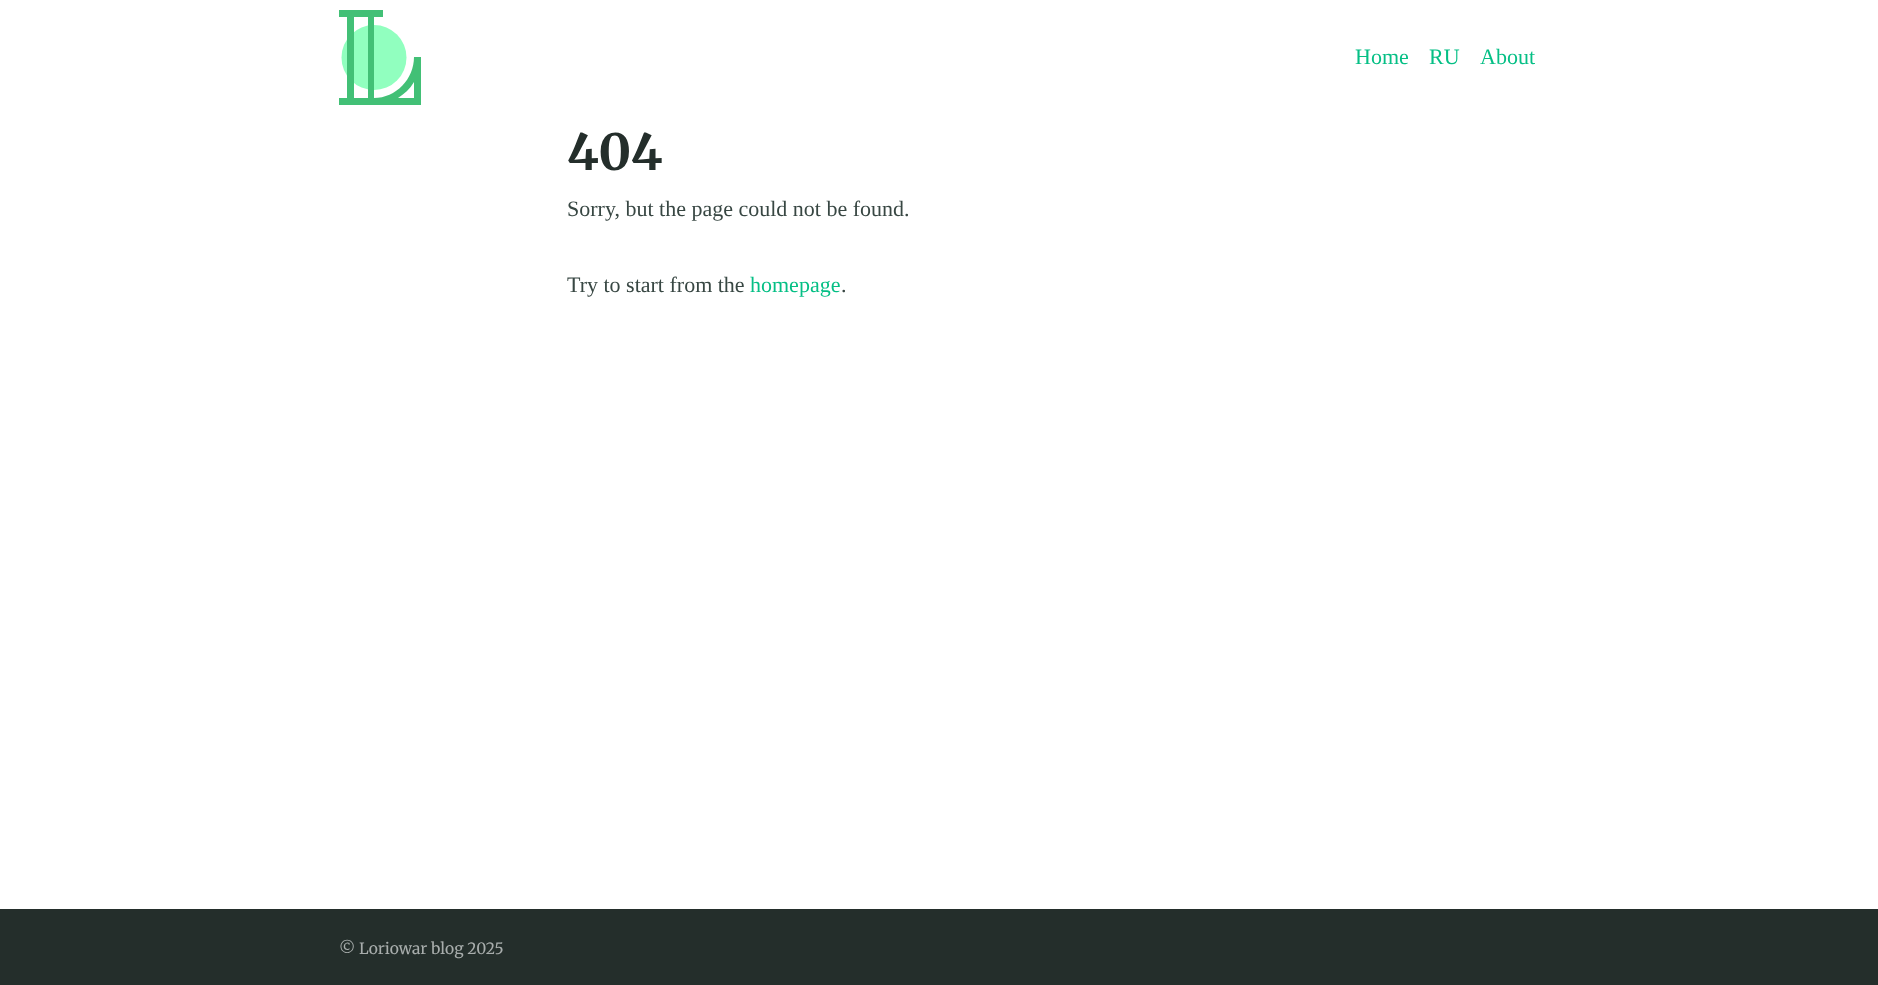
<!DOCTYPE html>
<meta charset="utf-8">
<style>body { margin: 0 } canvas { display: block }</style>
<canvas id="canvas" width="1878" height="985"></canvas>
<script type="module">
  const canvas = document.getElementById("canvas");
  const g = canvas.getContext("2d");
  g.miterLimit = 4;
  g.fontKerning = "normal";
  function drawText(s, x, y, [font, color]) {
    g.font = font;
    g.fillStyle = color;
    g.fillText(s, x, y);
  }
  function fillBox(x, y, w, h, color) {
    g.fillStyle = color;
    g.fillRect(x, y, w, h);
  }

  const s1 = ["22px Liberation Serif", "#05BF85"];
  const s2 = ["bold 50px Merriweather", "#242E2B"];
  const s3 = ["22px Liberation Serif", "#384743"];
  const s4 = ["15.6px Merriweather", "#A8ADAC"];

  fillBox(0, 0, 1878, 985, "#FFFFFF");
  g.fillStyle = "#91FFBF";
  g.beginPath();
  g.arc(374, 57.5, 32.5, 0, Math.PI * 2);
  g.fill();
  g.fillStyle = "#42C076";
  g.beginPath();
  g.moveTo(339, 98);
  g.lineTo(347, 98);
  g.lineTo(347, 17);
  g.lineTo(339, 17);
  g.lineTo(339, 10);
  g.lineTo(383, 10);
  g.lineTo(383, 17);
  g.lineTo(374, 17);
  g.lineTo(374, 98);
  g.bezierCurveTo(396, 98, 414, 79, 414, 57);
  g.lineTo(421, 57);
  g.lineTo(421, 105);
  g.lineTo(339, 105);
  g.closePath();
  g.moveTo(414, 82);
  g.bezierCurveTo(410, 89, 404, 94, 398, 98);
  g.lineTo(414, 98);
  g.closePath();
  g.moveTo(354, 98);
  g.lineTo(368, 98);
  g.lineTo(368, 17);
  g.lineTo(354, 17);
  g.closePath();
  g.fill();
  drawText("Home", 1355, 64, s1);
  drawText("RU", 1429, 64, s1);
  drawText("About", 1480, 64, s1);
  drawText("404", 567, 170, s2);
  drawText("Sorry, but the page could not be found.", 567, 216, s3);
  drawText("Try to start from the", 567, 292, s3);
  drawText("homepage", 750, 292, s1);
  drawText(".", 841, 292, s3);
  fillBox(0, 909, 1878, 76, "#242E2B");
  drawText("© Loriowar blog 2025", 339, 954, s4);
</script>
